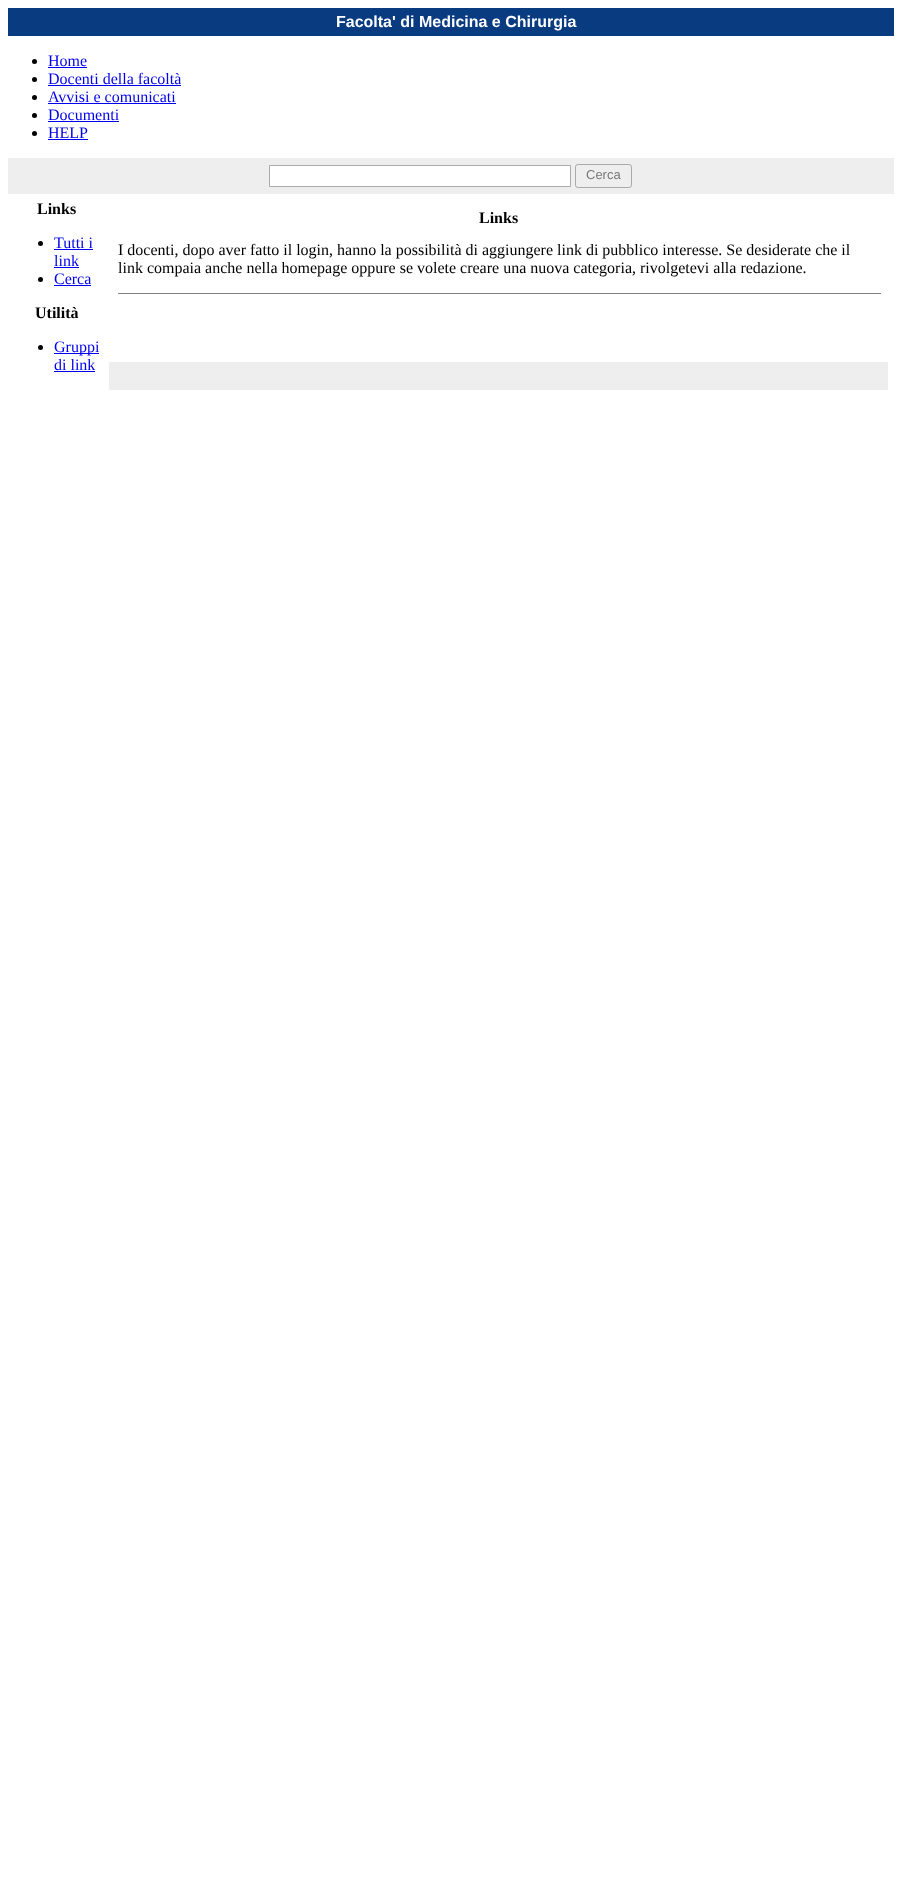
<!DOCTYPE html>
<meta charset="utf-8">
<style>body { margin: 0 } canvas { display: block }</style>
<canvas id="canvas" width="902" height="1893"></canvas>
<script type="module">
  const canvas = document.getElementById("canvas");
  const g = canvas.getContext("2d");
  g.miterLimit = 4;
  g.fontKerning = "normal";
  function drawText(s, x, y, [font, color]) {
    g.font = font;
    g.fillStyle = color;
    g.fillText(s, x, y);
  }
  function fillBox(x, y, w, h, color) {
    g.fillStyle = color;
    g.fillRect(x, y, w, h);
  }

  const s1 = ["bold 16px Liberation Sans", "#FFFFFF"];
  const s2 = ["16px Liberation Serif", "#0000EE"];
  const s3 = ["13px Liberation Sans", "#777777"];
  const s4 = ["bold 16px Liberation Serif", "#000000"];
  const s5 = ["16px Liberation Serif", "#000000"];

  fillBox(0, 0, 902, 1893, "#FFFFFF");
  fillBox(8, 8, 886, 28, "#093B81");
  drawText("Facolta' di Medicina e Chirurgia", 336, 27, s1);
  g.fillStyle = "#000000";
  g.beginPath();
  g.arc(34.5, 61.5, 2.5, 0, Math.PI * 2);
  g.fill();
  drawText("Home", 48, 66, s2);
  fillBox(48, 67, 39, 1, "#0000EE");
  g.fillStyle = "#000000";
  g.beginPath();
  g.arc(34.5, 79.5, 2.5, 0, Math.PI * 2);
  g.fill();
  drawText("Docenti della facoltà", 48, 84, s2);
  fillBox(48, 85, 133, 1, "#0000EE");
  g.fillStyle = "#000000";
  g.beginPath();
  g.arc(34.5, 97.5, 2.5, 0, Math.PI * 2);
  g.fill();
  drawText("Avvisi e comunicati", 48, 102, s2);
  fillBox(48, 103, 128, 1, "#0000EE");
  g.fillStyle = "#000000";
  g.beginPath();
  g.arc(34.5, 115.5, 2.5, 0, Math.PI * 2);
  g.fill();
  drawText("Documenti", 48, 120, s2);
  fillBox(48, 121, 71, 1, "#0000EE");
  g.fillStyle = "#000000";
  g.beginPath();
  g.arc(34.5, 133.5, 2.5, 0, Math.PI * 2);
  g.fill();
  drawText("HELP", 48, 138, s2);
  fillBox(48, 139, 40, 1, "#0000EE");
  fillBox(8, 158, 886, 36, "#EEEEEE");
  g.fillStyle = "#FFFFFF";
  g.beginPath();
  g.rect(269.5, 165.5, 301, 21);
  g.fill();
  g.strokeStyle = "#AAAAAA";
  g.stroke();
  g.beginPath();
  g.roundRect(575.5, 164.5, 56, 23, 2.5);
  g.stroke();
  drawText("Cerca", 586, 179, s3);
  drawText("Links", 37, 214, s4);
  g.beginPath();
  g.arc(40.5, 243.5, 2.5, 0, Math.PI * 2);
  g.fill();
  drawText("Tutti i", 54, 248, s2);
  fillBox(54, 249, 39, 1, "#0000EE");
  drawText("link", 54, 266, s2);
  fillBox(54, 267, 25, 1, "#0000EE");
  g.fillStyle = "#000000";
  g.beginPath();
  g.arc(40.5, 279.5, 2.5, 0, Math.PI * 2);
  g.fill();
  drawText("Cerca", 54, 284, s2);
  fillBox(54, 285, 37, 1, "#0000EE");
  drawText("Utilità", 35, 318, s4);
  g.beginPath();
  g.arc(40.5, 347.5, 2.5, 0, Math.PI * 2);
  g.fill();
  fillBox(54, 353, 45, 1, "#0000EE");
  drawText("Gruppi", 54, 352, s2);
  drawText("di link", 54, 370, s2);
  fillBox(54, 371, 41, 1, "#0000EE");
  drawText("Links", 479, 223, s4);
  drawText("I docenti, dopo aver fatto il login, hanno la possibilità di aggiungere link di pubblico interesse. Se desiderate che il", 118, 255, s5);
  drawText("link compaia anche nella homepage oppure se volete creare una nuova categoria, rivolgetevi alla redazione.", 118, 273, s5);
  fillBox(118, 293, 763, 1, "#808080");
  fillBox(109, 362, 779, 28, "#EEEEEE");
</script>
